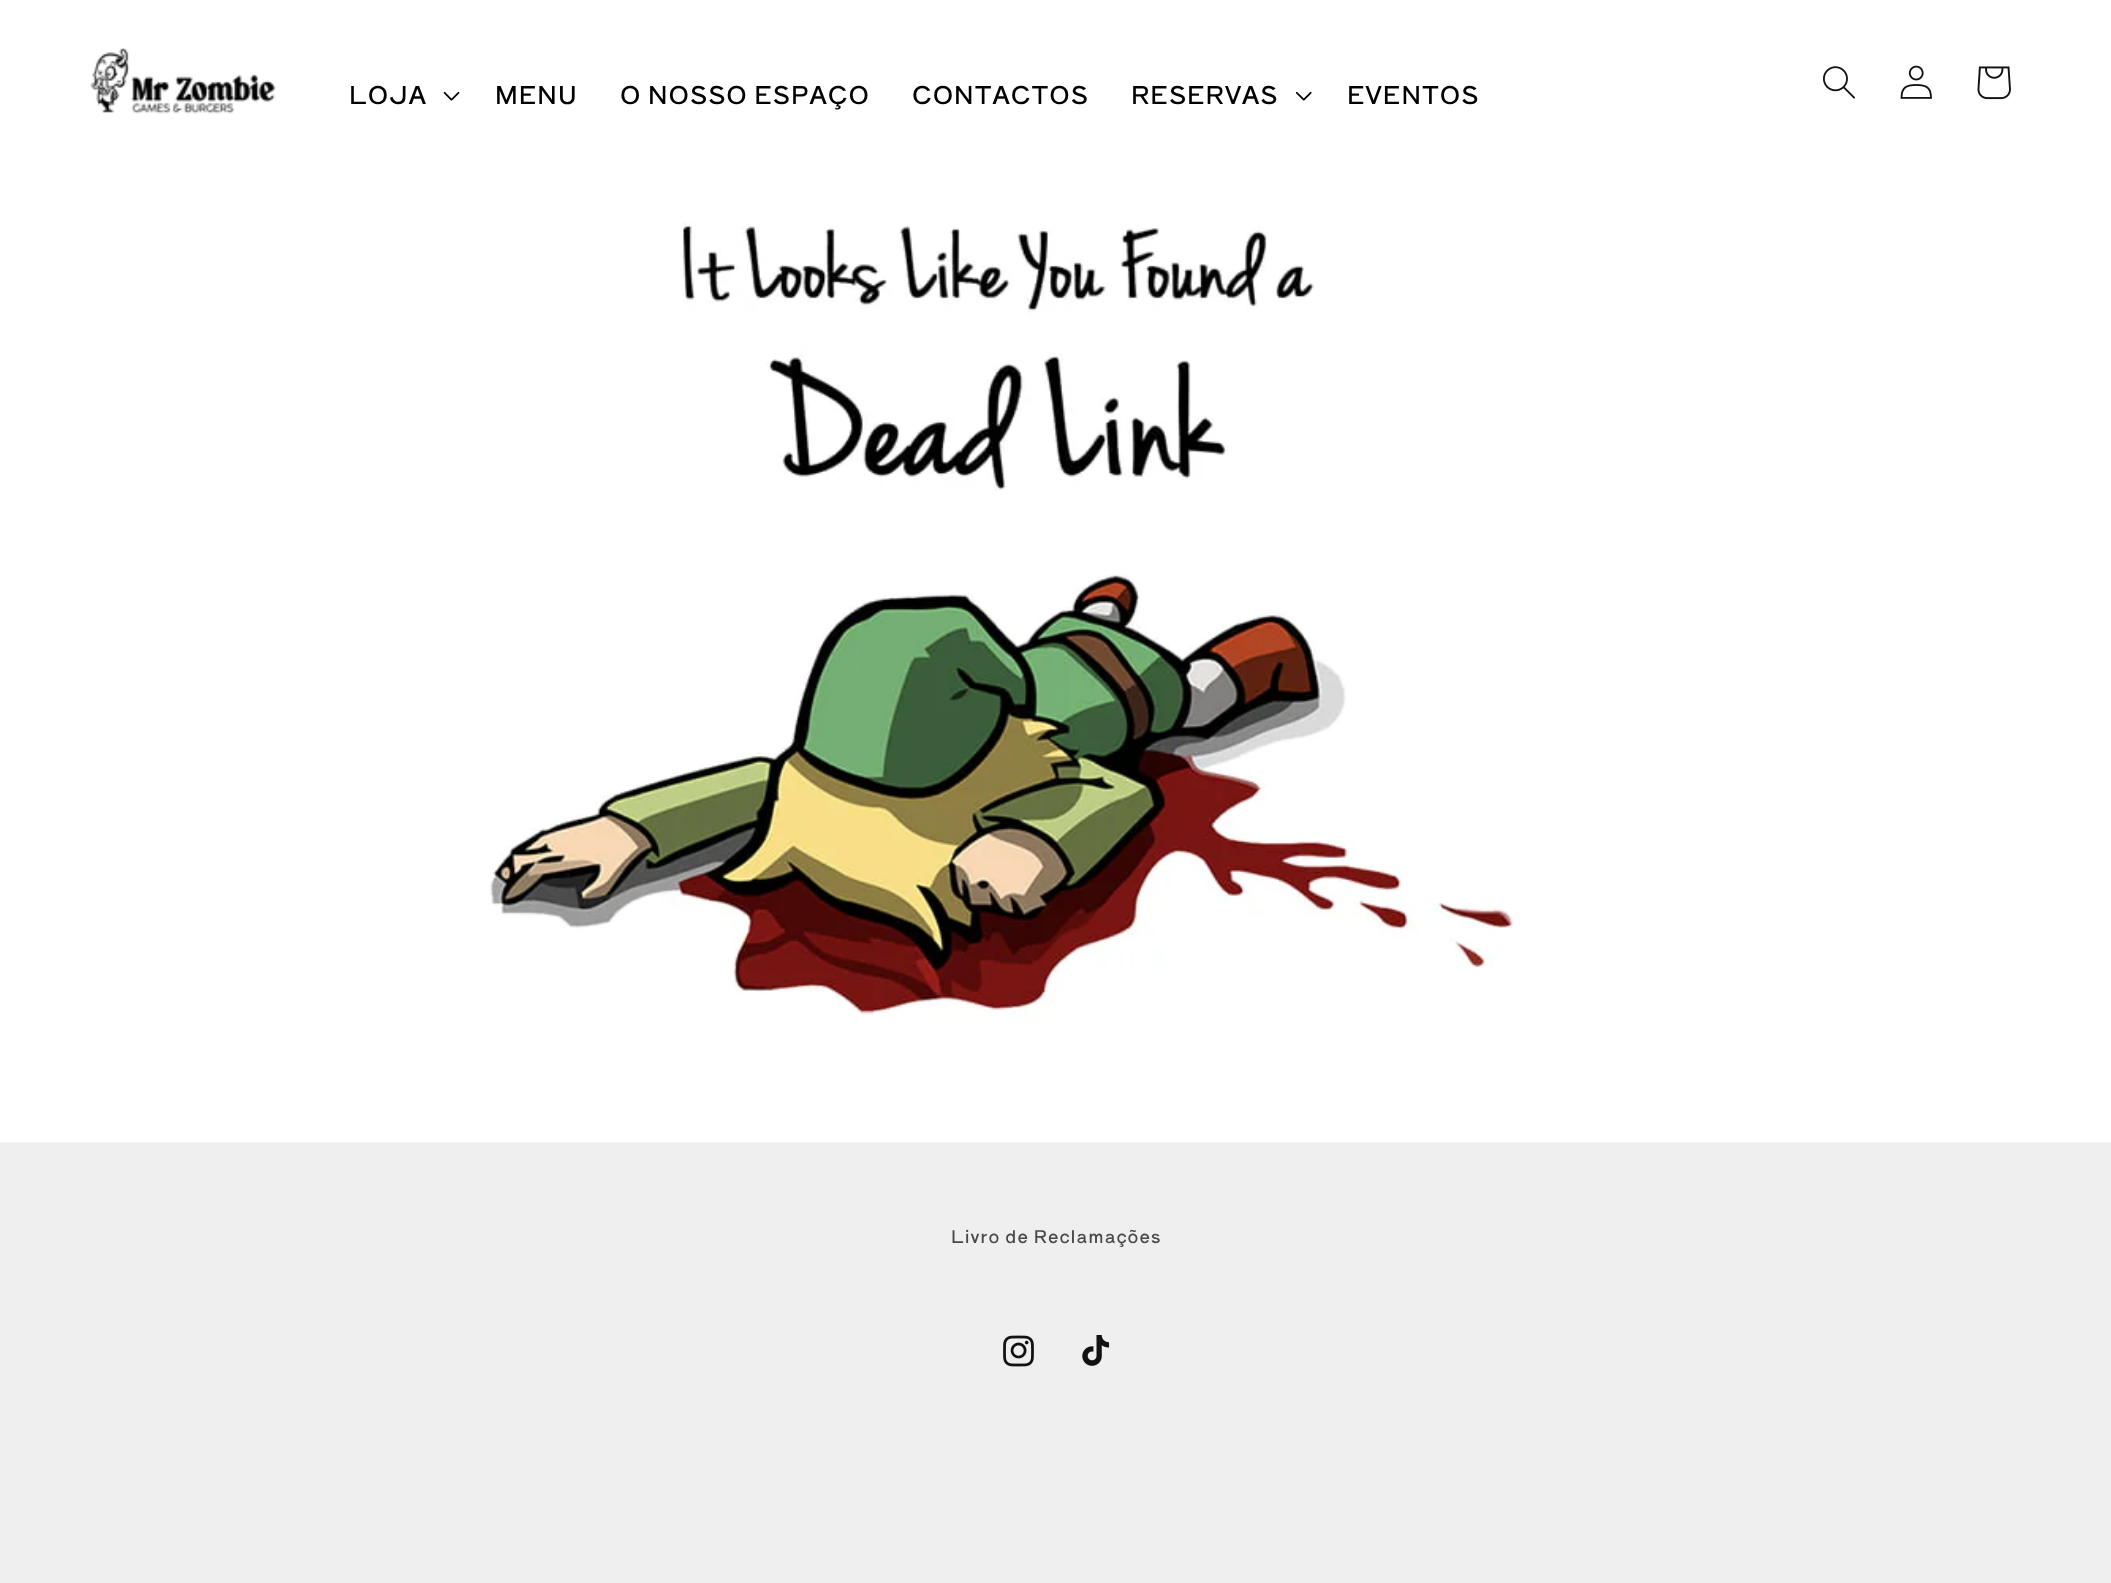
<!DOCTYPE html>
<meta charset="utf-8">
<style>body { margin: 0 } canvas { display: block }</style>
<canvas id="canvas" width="2111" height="1583"></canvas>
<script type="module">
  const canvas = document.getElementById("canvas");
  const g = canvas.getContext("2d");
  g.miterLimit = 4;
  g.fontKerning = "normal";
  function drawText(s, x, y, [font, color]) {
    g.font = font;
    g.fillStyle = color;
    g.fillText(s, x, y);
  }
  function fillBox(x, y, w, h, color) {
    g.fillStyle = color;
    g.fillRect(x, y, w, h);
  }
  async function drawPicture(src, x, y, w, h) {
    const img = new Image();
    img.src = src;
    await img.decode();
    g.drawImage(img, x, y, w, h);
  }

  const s1 = ["24.5px Shippori Antique", "#000000"];
  const s2 = ["17.5px Shippori Antique", "#494949"];

  fillBox(0, 0, 2111, 1583, "#FFFFFF");
  await drawPicture("pic1.png", 90, 48, 186, 66);
  g.letterSpacing = "1.05px";
  drawText("LOJA", 349, 104, s1);
  await drawPicture("pic2.png", 443, 91, 17, 10);
  drawText("MENU", 495, 104, s1);
  drawText("O NOSSO ESPAÇO", 620, 104, s1);
  drawText("CONTACTOS", 912, 104, s1);
  drawText("RESERVAS", 1131, 104, s1);
  await drawPicture("pic3.png", 1295, 91, 17, 10);
  drawText("EVENTOS", 1347, 104, s1);
  await drawPicture("pic4.png", 1823, 66, 32, 33);
  await drawPicture("pic5.png", 1900, 65, 32, 34);
  await drawPicture("pic6.png", 1977, 66, 34, 34);
  fillBox(0, 1142, 2111, 1, "#E8E8E8");
  await drawPicture("pic7.png", 0, 163, 2111, 980);
  fillBox(0, 1143, 2111, 440, "#EFEFEF");
  drawText("Livro de Reclamações", 951, 1243, s2);
  await drawPicture("pic8.png", 1003, 1335, 31, 32);
  await drawPicture("pic9.png", 1082, 1335, 28, 31);
</script>
